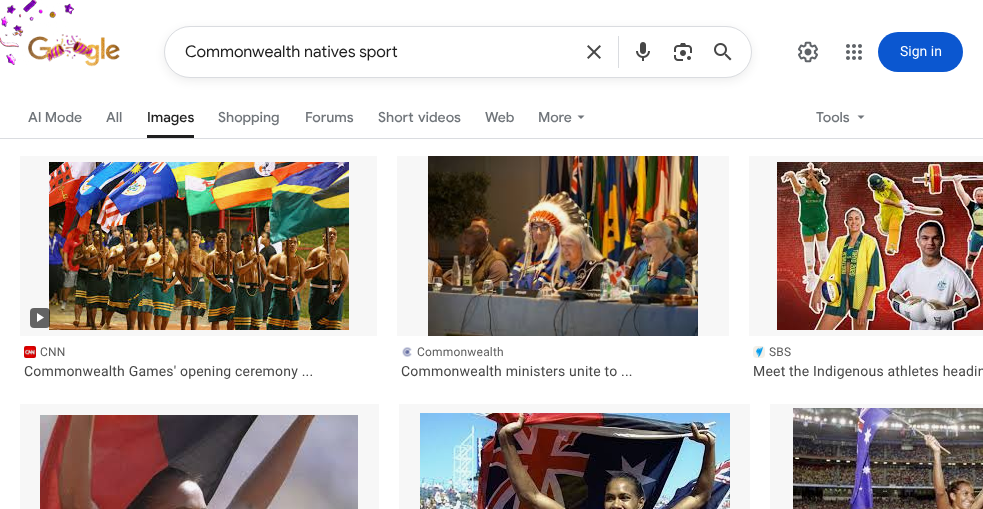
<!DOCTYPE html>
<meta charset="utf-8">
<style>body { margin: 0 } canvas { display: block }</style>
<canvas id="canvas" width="983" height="509"></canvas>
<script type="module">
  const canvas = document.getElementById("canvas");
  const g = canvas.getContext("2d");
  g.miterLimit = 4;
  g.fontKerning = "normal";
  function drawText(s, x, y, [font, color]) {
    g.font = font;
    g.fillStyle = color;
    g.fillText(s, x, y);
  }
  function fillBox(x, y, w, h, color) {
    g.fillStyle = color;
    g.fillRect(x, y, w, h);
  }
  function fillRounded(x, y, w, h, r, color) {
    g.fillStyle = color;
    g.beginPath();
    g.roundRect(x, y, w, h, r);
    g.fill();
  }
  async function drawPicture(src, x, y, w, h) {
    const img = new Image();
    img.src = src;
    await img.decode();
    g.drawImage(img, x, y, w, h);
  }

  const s1 = ["16px Google Sans", "#1F1F1F"];
  const s2 = ["14px Roboto", "#FFFFFF"];
  const s3 = ["500 14px Google Sans", "#70757A"];
  const s4 = ["500 14px Google Sans", "#1F1F1F"];
  const s5 = ["12px Roboto", "#5E5E5E"];
  const s6 = ["14px Roboto", "#474747"];

  fillBox(0, 0, 983, 509, "#FFFFFF");
  await drawPicture("pic1.png", 0, 0, 75, 65);
  await drawPicture("pic2.png", 28, 34, 92, 33);
  g.fillStyle = "rgba(31, 31, 31, 0.08)";
  g.filter = "blur(5px)";
  g.beginPath();
  g.roundRect(164, 29, 588, 52, 26);
  g.fill();
  g.filter = "none";
  g.fillStyle = "#FFFFFF";
  g.beginPath();
  g.roundRect(164.5, 26.5, 587, 51, 25.5);
  g.fill();
  g.strokeStyle = "#DADCE0";
  g.stroke();
  drawText("Commonwealth natives sport", 185, 57, s1);
  await drawPicture("pic3.png", 587, 45, 14, 14);
  fillBox(618, 36, 1, 32, "#DADCE0");
  await drawPicture("pic4.png", 636, 42, 14, 19);
  await drawPicture("pic5.png", 674, 43, 18, 18);
  await drawPicture("pic6.png", 714, 43, 18, 18);
  await drawPicture("pic7.png", 798, 41, 20, 22);
  await drawPicture("pic8.png", 846, 44, 16, 16);
  fillRounded(878, 32, 85, 40, 20, "#0B57D0");
  drawText("Sign in", 900, 56, s2);
  drawText("AI Mode", 28, 122, s3);
  drawText("All", 106, 122, s3);
  fillBox(147, 135, 47, 3, "#1F1F1F");
  drawText("Images", 147, 122, s4);
  drawText("Shopping", 218, 122, s3);
  drawText("Forums", 305, 122, s3);
  g.wordSpacing = "1px";
  drawText("Short videos", 378, 122, s3);
  g.wordSpacing = "0px";
  drawText("Web", 485, 122, s3);
  drawText("More", 538, 122, s3);
  g.beginPath();
  g.moveTo(577.5, 115.5);
  g.lineTo(581, 119);
  g.lineTo(584.5, 115.5);
  g.closePath();
  g.fill();
  drawText("Tools", 816, 122, s3);
  g.beginPath();
  g.moveTo(857.5, 115.5);
  g.lineTo(861, 119);
  g.lineTo(864.5, 115.5);
  g.closePath();
  g.fill();
  fillBox(0, 138, 983, 1, "#DADCE0");
  await drawPicture("pic9.png", 49, 162, 300, 168);
  fillBox(20, 156, 357, 180, "rgba(0, 0, 0, 0.03)");
  fillRounded(30, 308, 20, 20, 4, "rgba(0, 0, 0, 0.6)");
  g.fillStyle = "#FFFFFF";
  g.beginPath();
  g.moveTo(37, 313);
  g.lineTo(37, 322);
  g.lineTo(44, 317.5);
  g.closePath();
  g.fill();
  await drawPicture("pic10.png", 24, 346, 12, 12);
  g.letterSpacing = "0.2px";
  drawText("CNN", 40, 356, s5);
  drawText("Commonwealth Games' opening ceremony ...", 24, 376, s6);
  await drawPicture("pic11.png", 428, 156, 270, 180);
  fillBox(397, 156, 332, 180, "rgba(0, 0, 0, 0.03)");
  await drawPicture("pic12.png", 402, 347, 10, 10);
  drawText("Commonwealth", 417, 356, s5);
  drawText("Commonwealth ministers unite to ...", 401, 376, s6);
  await drawPicture("pic13.png", 777, 162, 206, 168);
  fillBox(749, 156, 234, 180, "rgba(0, 0, 0, 0.03)");
  await drawPicture("pic14.png", 753, 346, 12, 12);
  drawText("SBS", 769, 356, s5);
  drawText("Meet the Indigenous athletes headin", 753, 376, s6);
  await drawPicture("pic15.png", 40, 415, 318, 94);
  fillBox(20, 404, 359, 105, "rgba(0, 0, 0, 0.03)");
  await drawPicture("pic16.png", 420, 413, 310, 96);
  fillBox(399, 404, 351, 105, "rgba(0, 0, 0, 0.03)");
  await drawPicture("pic17.png", 793, 408, 190, 101);
  fillBox(770, 404, 213, 105, "rgba(0, 0, 0, 0.03)");
</script>
